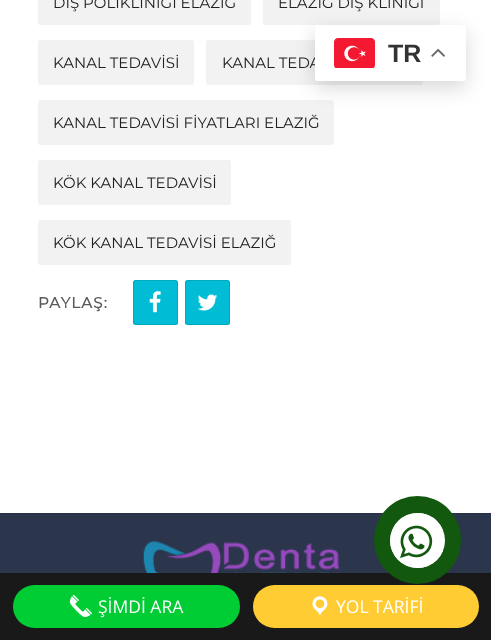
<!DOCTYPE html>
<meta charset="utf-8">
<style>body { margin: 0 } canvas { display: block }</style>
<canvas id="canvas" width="491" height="640"></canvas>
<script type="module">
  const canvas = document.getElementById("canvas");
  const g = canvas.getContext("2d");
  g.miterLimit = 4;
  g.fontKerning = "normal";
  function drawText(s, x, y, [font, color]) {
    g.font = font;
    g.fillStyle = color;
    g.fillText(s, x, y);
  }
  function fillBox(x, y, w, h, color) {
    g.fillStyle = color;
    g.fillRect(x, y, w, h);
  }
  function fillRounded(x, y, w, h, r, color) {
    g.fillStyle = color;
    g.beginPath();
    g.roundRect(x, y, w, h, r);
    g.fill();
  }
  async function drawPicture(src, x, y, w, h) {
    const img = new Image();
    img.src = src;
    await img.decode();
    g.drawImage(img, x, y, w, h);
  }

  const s1 = ["100 15px Montserrat", "#212121"];
  const s2 = ["bold 15px Montserrat", "#595959"];
  const s3 = ["bold 25px Liberation Sans", "#333333"];
  const s4 = ["17.5px Open Sans", "#FFFFFF"];

  fillBox(0, 0, 491, 640, "#FFFFFF");
  fillRounded(38, -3, 213, 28, 2.5, "#F2F2F2");
  drawText("DİŞ POLİKLİNİĞİ ELAZIĞ", 53, 8, s1);
  fillRounded(263, -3, 177, 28, 2.5, "#F2F2F2");
  drawText("ELAZIĞ DİŞ KLİNİGİ", 278, 8, s1);
  fillRounded(38, 40, 156, 45, 2.5, "#F2F2F2");
  drawText("KANAL TEDAVİSİ", 53, 68, s1);
  fillRounded(206, 40, 217, 45, 2.5, "#F2F2F2");
  drawText("KANAL TEDA", 222, 68, s1);
  fillRounded(38, 100, 296, 45, 2.5, "#F2F2F2");
  drawText("KANAL TEDAVİSİ FİYATLARI ELAZIĞ", 53, 128, s1);
  fillRounded(38, 160, 193, 45, 2.5, "#F2F2F2");
  drawText("KÖK KANAL TEDAVİSİ", 53, 188, s1);
  fillRounded(38, 220, 253, 45, 2.5, "#F2F2F2");
  drawText("KÖK KANAL TEDAVİSİ ELAZIĞ", 53, 248, s1);
  g.letterSpacing = "1.25px";
  drawText("PAYLAŞ:", 38, 308, s2);
  fillRounded(133, 280, 45, 45, 2.5, "#00BCD4");
  g.beginPath();
  g.roundRect(133.5, 280.5, 44, 44, 2);
  g.strokeStyle = "rgba(0, 0, 0, 0.1)";
  g.stroke();
  await drawPicture("pic1.png", 149, 291, 12, 22);
  fillRounded(185, 280, 45, 45, 2.5, "#00BCD4");
  g.beginPath();
  g.roundRect(185.5, 280.5, 44, 44, 2);
  g.stroke();
  await drawPicture("pic2.png", 197, 294, 21, 17);
  g.fillStyle = "rgba(0, 0, 0, 0.15)";
  g.filter = "blur(9.5px)";
  g.beginPath();
  g.roundRect(315, 31, 151, 57, 2.5);
  g.fill();
  g.filter = "none";
  fillRounded(315, 25, 151, 56, 2.5, "#FFFFFF");
  await drawPicture("pic3.png", 334, 38, 41, 30);
  g.letterSpacing = "0px";
  drawText("TR", 388, 62, s3);
  await drawPicture("pic4.png", 431, 48, 14, 9);
  fillBox(0, 514, 491, 59, "#2B354B");
  fillBox(0, 513, 491, 1, "#293247");
  fillBox(0, 573, 491, 67, "#1A1919");
  fillRounded(374, 496, 87, 88, 43.5, "#12580F");
  g.fillStyle = "#FFFFFF";
  g.beginPath();
  g.arc(417.5, 540.5, 27.5, 0, Math.PI * 2);
  g.fill();
  g.save();
  g.beginPath();
  g.roundRect(390, 513, 55, 55, 27.5);
  g.clip();
  g.beginPath();
  g.roundRect(390, 513, 53, 55, [27.5, 0, 0, 27.5]);
  g.fill();
  g.restore();
  await drawPicture("pic5.png", 400, 525, 33, 33);
  await drawPicture("pic6.png", 143, 541, 197, 32);
  fillRounded(13, 585, 227, 43, 21.5, "#00CC33");
  await drawPicture("pic7.png", 69, 594, 23, 23);
  drawText("ŞİMDİ ARA", 98, 613, s4);
  fillRounded(253, 585, 226, 43, 21.5, "#FFCC33");
  await drawPicture("pic8.png", 312, 596, 16, 20);
  drawText("YOL TARİFİ", 336, 613, s4);
</script>
